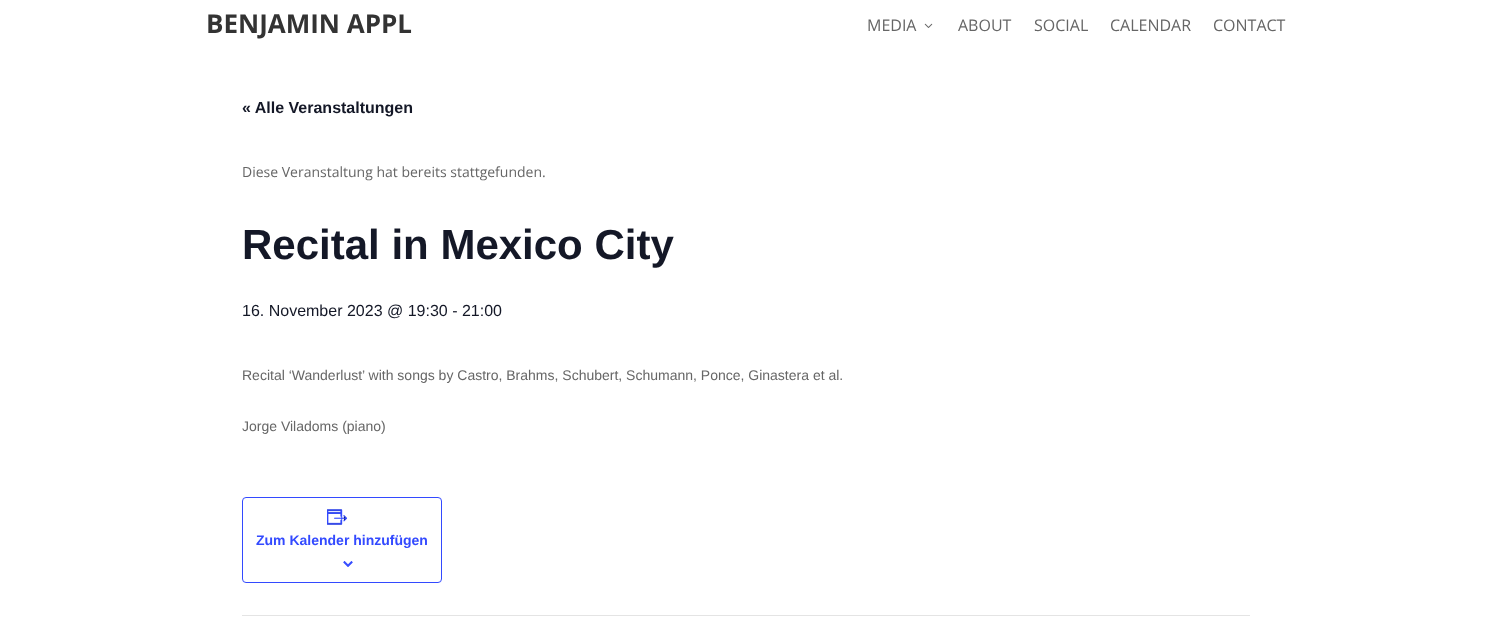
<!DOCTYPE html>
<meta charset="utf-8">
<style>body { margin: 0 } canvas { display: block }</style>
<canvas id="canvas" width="1491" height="617"></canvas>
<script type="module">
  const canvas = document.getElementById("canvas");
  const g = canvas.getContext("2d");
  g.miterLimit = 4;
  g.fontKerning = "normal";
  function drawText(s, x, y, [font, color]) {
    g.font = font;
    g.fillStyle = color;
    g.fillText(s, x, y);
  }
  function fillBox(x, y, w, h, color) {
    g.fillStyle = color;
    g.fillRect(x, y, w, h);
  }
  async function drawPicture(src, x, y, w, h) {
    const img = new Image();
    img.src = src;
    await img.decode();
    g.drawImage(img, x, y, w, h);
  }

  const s1 = ["bold 26px Open Sans", "#333333"];
  const s2 = ["16px Open Sans", "#666666"];
  const s3 = ["bold 16px Liberation Sans", "#141827"];
  const s4 = ["14px Open Sans", "#666666"];
  const s5 = ["bold 42px Liberation Sans", "#141827"];
  const s6 = ["16px Liberation Sans", "#141827"];
  const s7 = ["14px Liberation Sans", "#666666"];
  const s8 = ["bold 14px Liberation Sans", "#334AFF"];

  fillBox(0, 0, 1491, 617, "#FFFFFF");
  drawText("BENJAMIN APPL", 206, 33, s1);
  drawText("MEDIA", 867, 31, s2);
  await drawPicture("pic1.png", 924, 23, 9, 5);
  drawText("ABOUT", 958, 31, s2);
  drawText("SOCIAL", 1034, 31, s2);
  drawText("CALENDAR", 1110, 31, s2);
  drawText("CONTACT", 1213, 31, s2);
  drawText("« Alle Veranstaltungen", 242, 113, s3);
  drawText("Diese Veranstaltung hat bereits stattgefunden.", 242, 177, s4);
  drawText("Recital in Mexico City", 242, 259, s5);
  drawText("16. November 2023 @ 19:30 - 21:00", 242, 316, s6);
  drawText("Recital ‘Wanderlust’ with songs by Castro, Brahms, Schubert, Schumann, Ponce, Ginastera et al.", 242, 380, s7);
  drawText("Jorge Viladoms (piano)", 242, 431, s7);
  g.beginPath();
  g.roundRect(242.5, 497.5, 199, 85, 3.5);
  g.strokeStyle = "#334AFF";
  g.stroke();
  await drawPicture("pic2.png", 327, 509, 21, 16);
  drawText("Zum Kalender hinzufügen", 256, 545, s8);
  await drawPicture("pic3.png", 343, 561, 10, 6);
  fillBox(242, 615, 1008, 1, "#E4E4E4");
</script>
